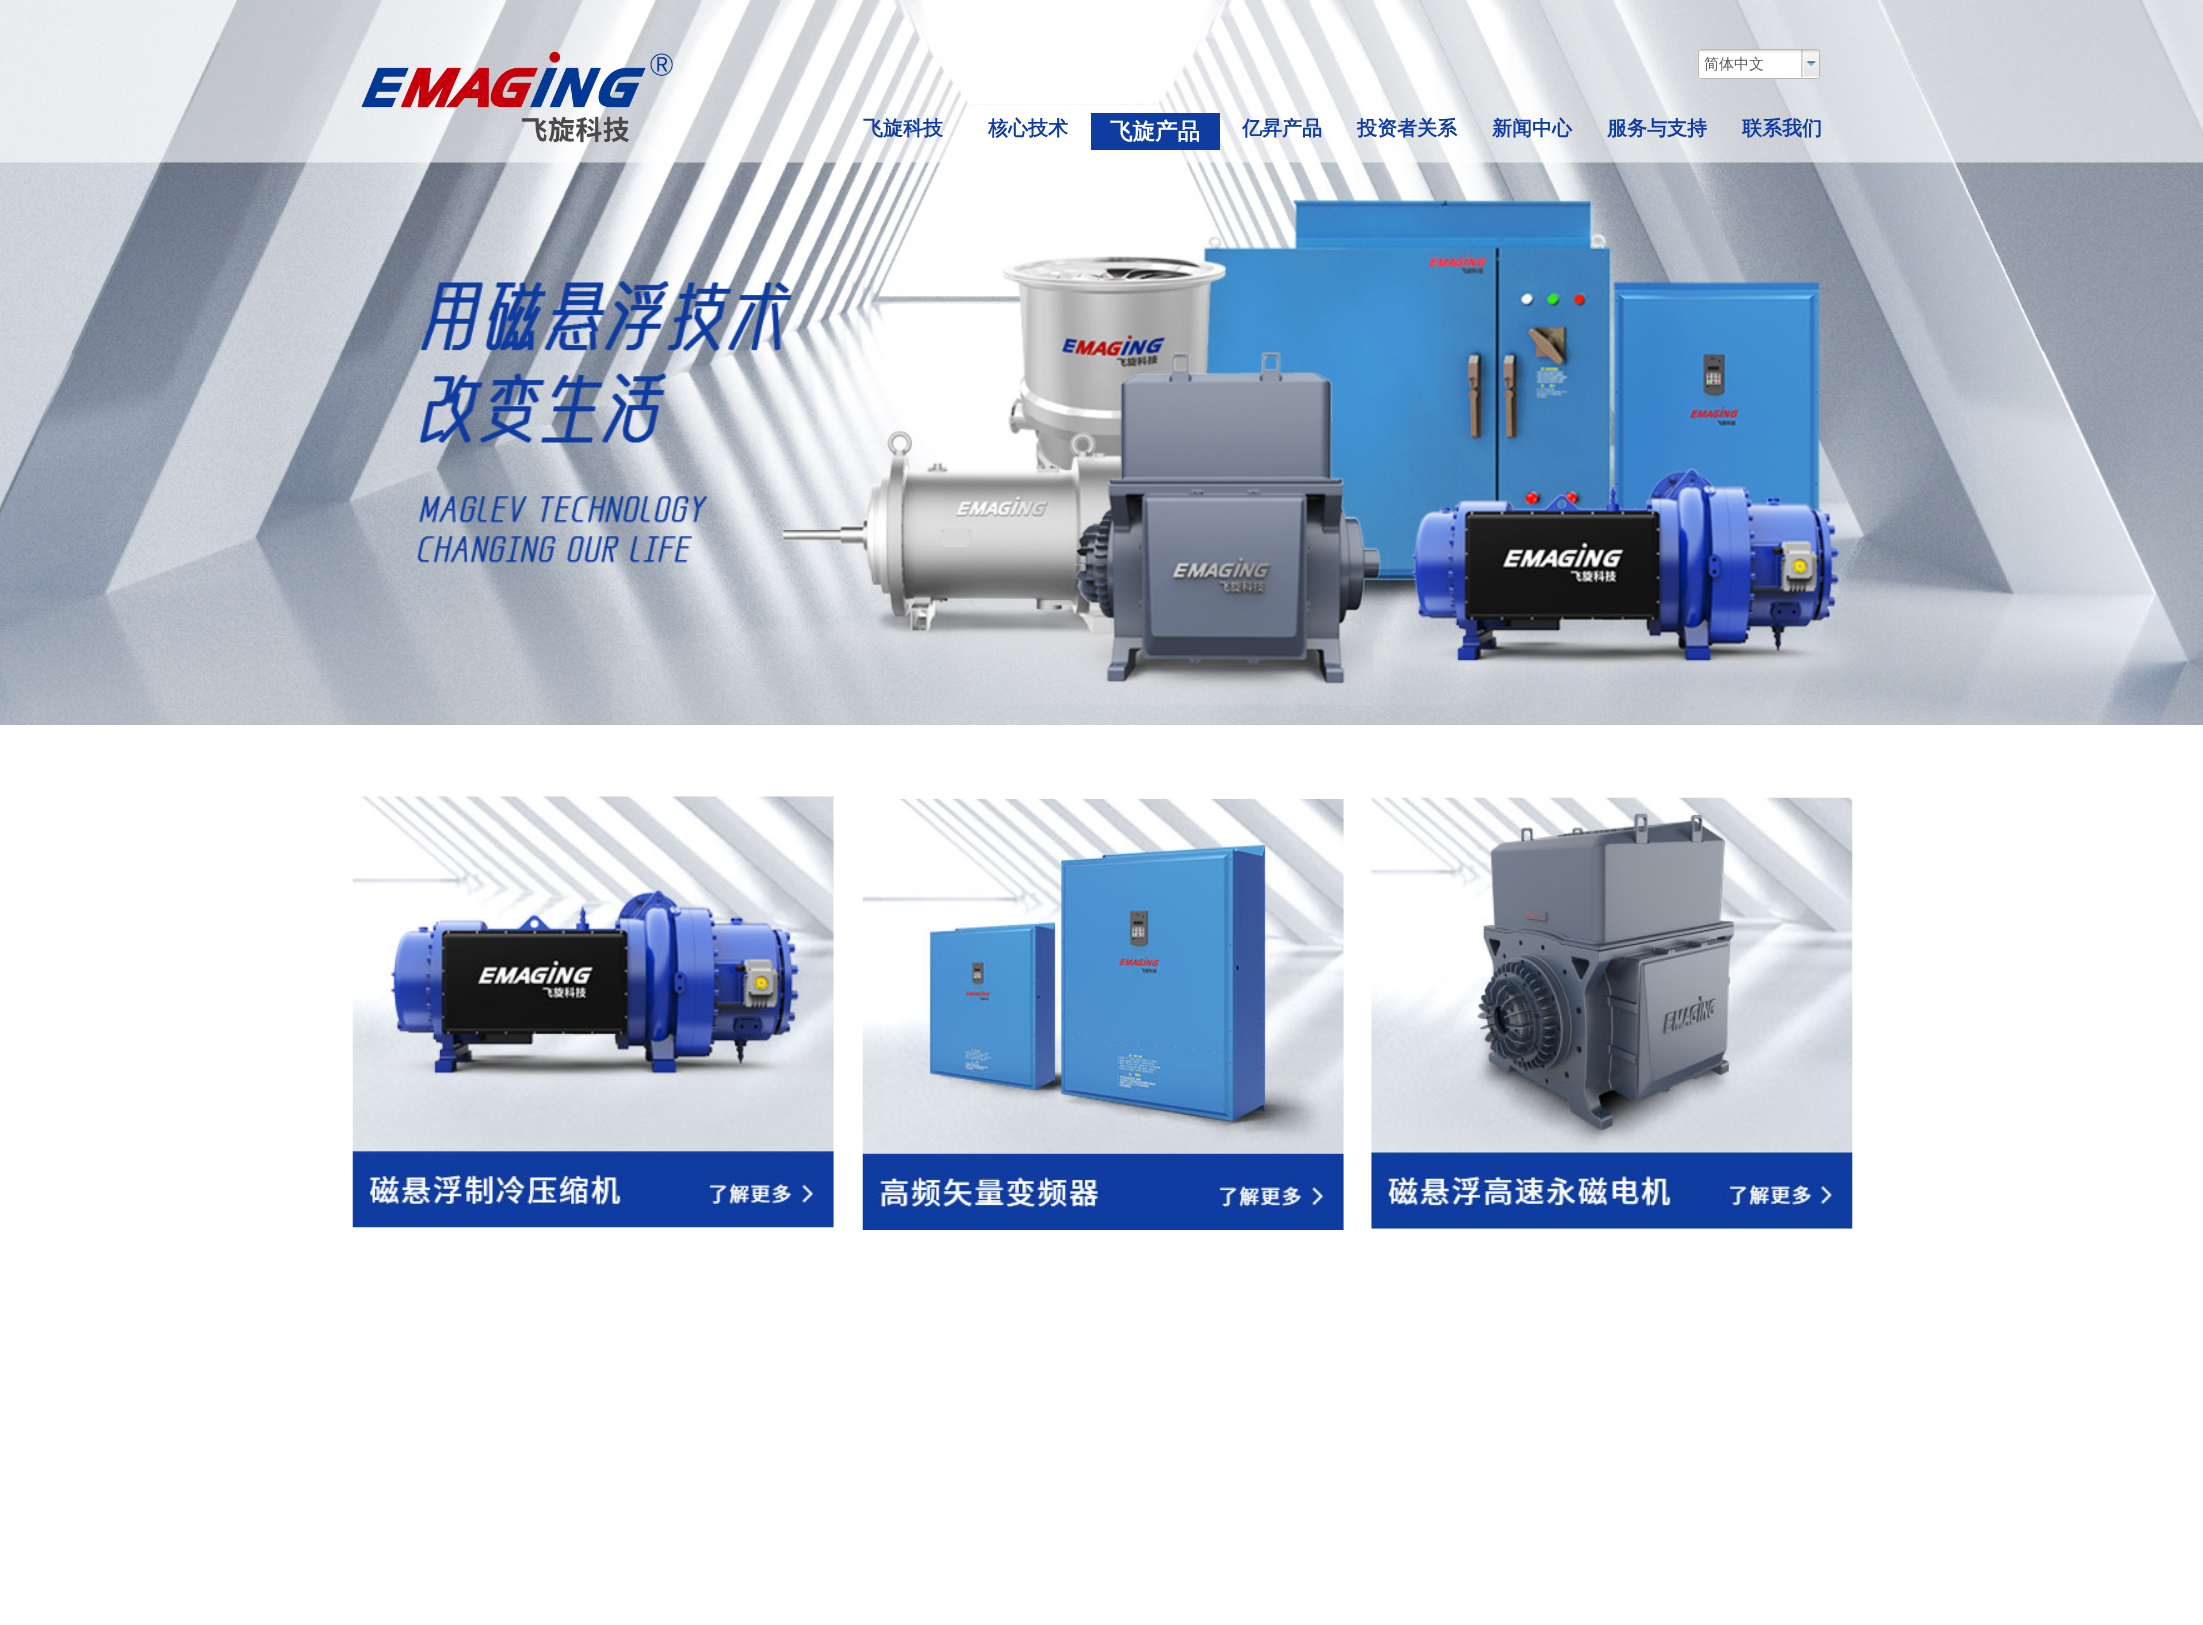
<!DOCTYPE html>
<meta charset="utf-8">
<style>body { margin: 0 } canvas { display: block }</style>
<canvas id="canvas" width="2203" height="1625"></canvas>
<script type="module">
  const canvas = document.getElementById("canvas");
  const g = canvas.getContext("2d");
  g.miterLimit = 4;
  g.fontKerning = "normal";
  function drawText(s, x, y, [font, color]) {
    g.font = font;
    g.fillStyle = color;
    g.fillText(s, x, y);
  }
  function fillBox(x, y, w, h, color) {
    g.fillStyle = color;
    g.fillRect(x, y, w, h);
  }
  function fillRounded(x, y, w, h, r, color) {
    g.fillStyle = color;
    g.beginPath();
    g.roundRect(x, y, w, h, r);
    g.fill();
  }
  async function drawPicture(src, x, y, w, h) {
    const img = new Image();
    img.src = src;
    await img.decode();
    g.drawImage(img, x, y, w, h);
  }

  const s1 = ["500 15px WenQuanYi Zen Hei", "#5A5A5A"];
  const s2 = ["bold 20px WenQuanYi Zen Hei", "#0F3CA0"];
  const s3 = ["bold 22.5px WenQuanYi Zen Hei", "#FFFFFF"];

  fillBox(0, 0, 2203, 1625, "#FFFFFF");
  await drawPicture("pic1.png", 0, 0, 2203, 725);
  await drawPicture("pic2.png", 361, 51, 312, 92);
  fillRounded(1698, 49, 122, 30, 2.5, "#FFFFFF");
  await drawPicture("pic3.png", 1697, 50, 123, 28);
  g.beginPath();
  g.roundRect(1698.5, 49.5, 121, 29, 2);
  g.strokeStyle = "#B5B5B5";
  g.stroke();
  drawText("简体中文", 1704, 69, s1);
  await drawPicture("pic4.png", 1801, 50, 18, 28);
  drawText("飞旋科技", 863, 135, s2);
  drawText("核心技术", 988, 135, s2);
  fillBox(1091, 113, 129, 37, "#0F3CA0");
  drawText("飞旋产品", 1110, 139, s3);
  drawText("亿昇产品", 1242, 135, s2);
  drawText("投资者关系", 1357, 135, s2);
  drawText("新闻中心", 1492, 135, s2);
  drawText("服务与支持", 1607, 135, s2);
  drawText("联系我们", 1742, 135, s2);
  await drawPicture("pic5.png", 352, 796, 482, 432);
  await drawPicture("pic6.png", 862, 798, 482, 432);
  await drawPicture("pic7.png", 1371, 797, 482, 432);
</script>
